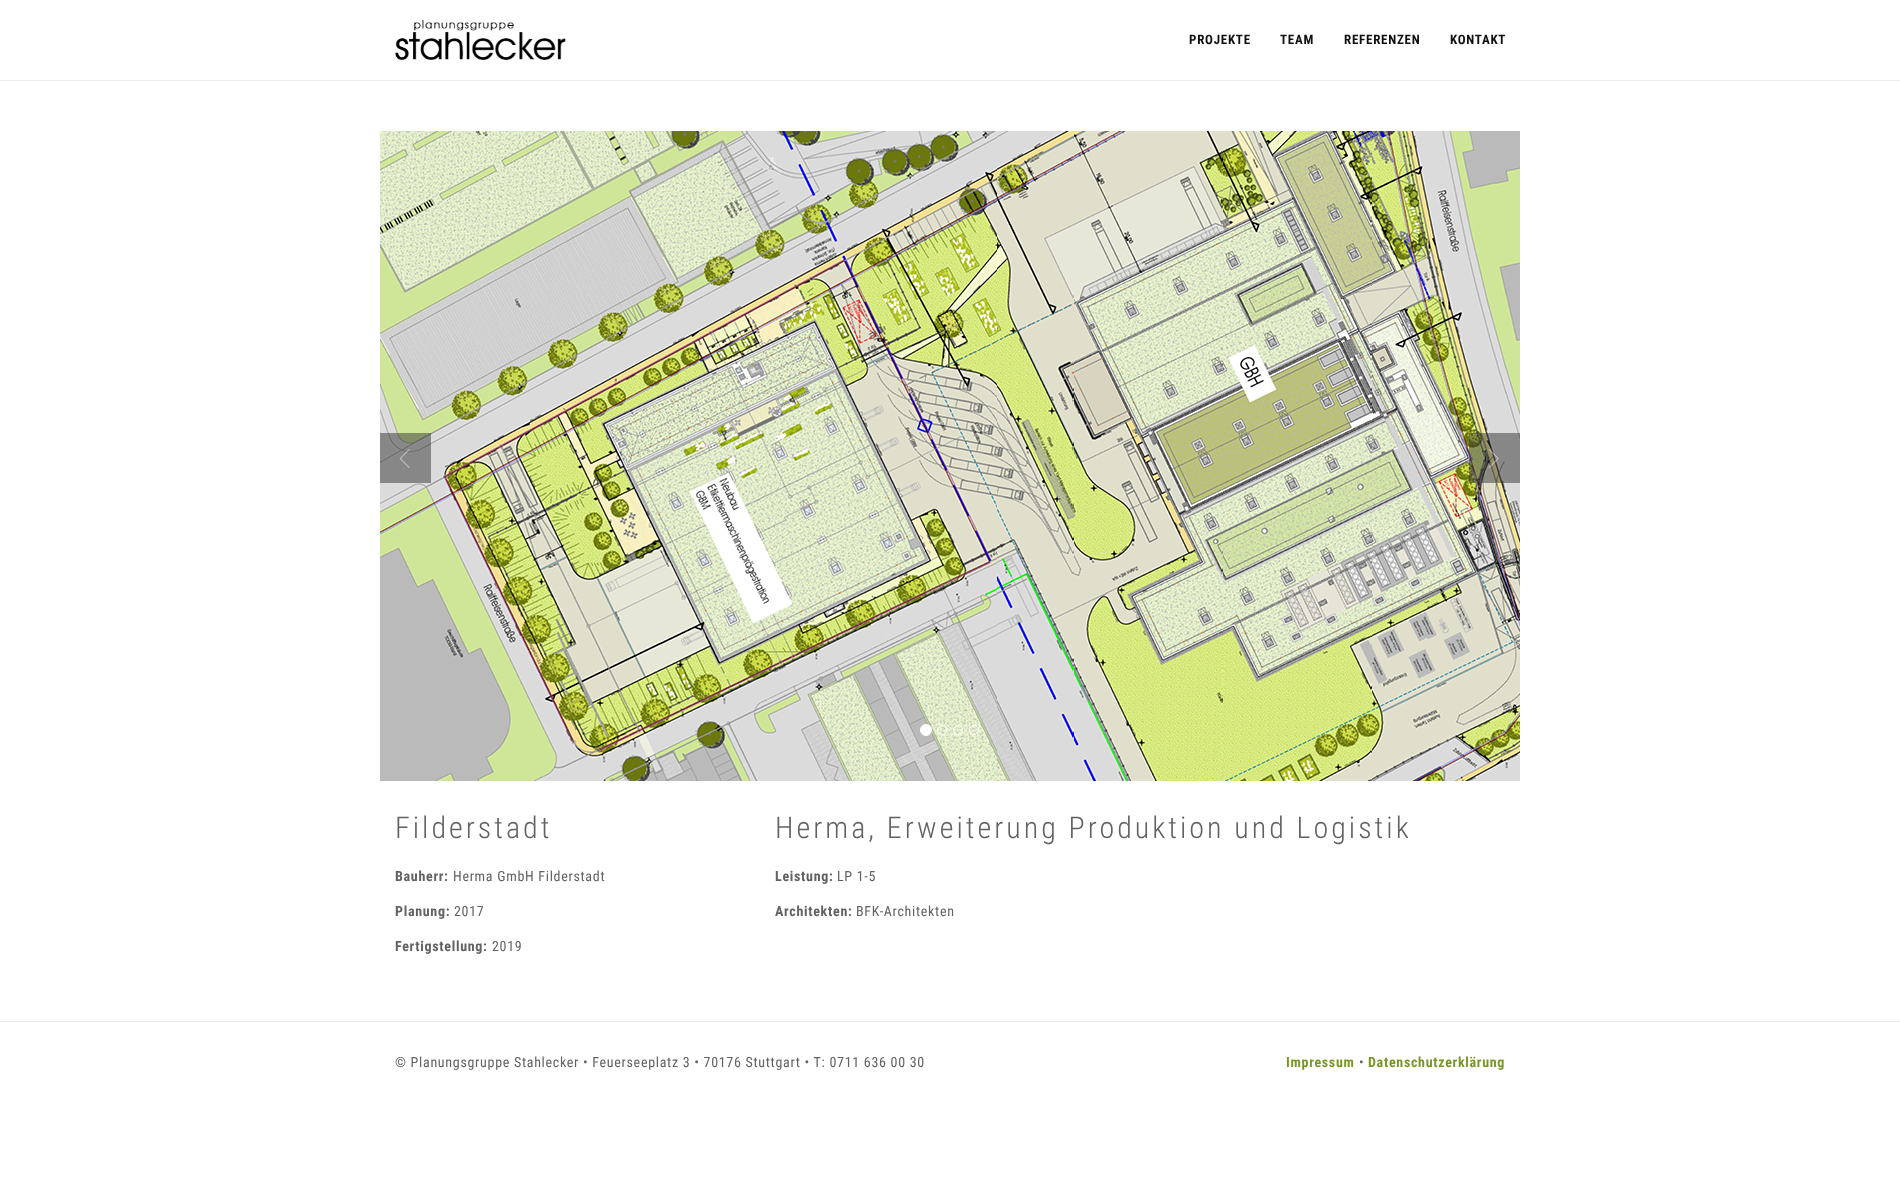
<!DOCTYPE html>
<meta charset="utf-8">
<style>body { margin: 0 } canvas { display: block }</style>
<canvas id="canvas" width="1900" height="1189"></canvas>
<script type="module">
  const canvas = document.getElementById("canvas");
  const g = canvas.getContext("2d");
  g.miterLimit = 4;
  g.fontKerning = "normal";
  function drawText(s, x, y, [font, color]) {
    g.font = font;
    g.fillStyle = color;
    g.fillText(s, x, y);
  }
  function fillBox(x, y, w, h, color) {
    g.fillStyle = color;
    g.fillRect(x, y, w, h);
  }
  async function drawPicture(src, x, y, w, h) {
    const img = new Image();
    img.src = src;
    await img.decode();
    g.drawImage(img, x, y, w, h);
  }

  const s1 = ["bold 13px Roboto Condensed", "#111111"];
  const s2 = ["300 30px Roboto Condensed", "#626262"];
  const s3 = ["bold 14px Roboto Condensed", "#626262"];
  const s4 = ["14px Roboto Condensed", "#626262"];
  const s5 = ["bold 14px Roboto Condensed", "#799823"];

  fillBox(0, 0, 1900, 1189, "#FFFFFF");
  fillBox(0, 80, 1900, 1, "#EBEBEB");
  await drawPicture("pic1.png", 395, 20, 171, 40);
  g.letterSpacing = "0.75px";
  drawText("PROJEKTE", 1189, 44, s1);
  drawText("TEAM", 1280, 44, s1);
  drawText("REFERENZEN", 1344, 44, s1);
  drawText("KONTAKT", 1450, 44, s1);
  await drawPicture("pic2.png", 380, 131, 1140, 650);
  fillBox(380, 433, 51, 50, "rgba(51, 51, 51, 0.5)");
  await drawPicture("pic3.png", 399, 449, 11, 19);
  fillBox(1469, 433, 51, 50, "rgba(51, 51, 51, 0.5)");
  await drawPicture("pic4.png", 1488, 449, 11, 19);
  g.fillStyle = "#FFFFFF";
  g.beginPath();
  g.arc(926, 730, 5.5, 0, Math.PI * 2);
  g.fill();
  g.strokeStyle = "#FFFFFF";
  g.stroke();
  g.beginPath();
  g.arc(942, 730, 4.5, 0, Math.PI * 2);
  g.stroke();
  g.beginPath();
  g.arc(958, 730, 4.5, 0, Math.PI * 2);
  g.stroke();
  g.beginPath();
  g.arc(974, 730, 4.5, 0, Math.PI * 2);
  g.stroke();
  g.letterSpacing = "3px";
  drawText("Filderstadt", 395, 838, s2);
  g.letterSpacing = "0.7px";
  drawText("Bauherr:", 395, 881, s3);
  drawText("Herma GmbH Filderstadt", 453, 881, s4);
  drawText("Planung:", 395, 916, s3);
  drawText("2017", 454, 916, s4);
  drawText("Fertigstellung:", 395, 951, s3);
  drawText("2019", 492, 951, s4);
  g.letterSpacing = "3px";
  drawText("Herma, Erweiterung Produktion und Logistik", 775, 838, s2);
  g.letterSpacing = "0.7px";
  drawText("Leistung:", 775, 881, s3);
  drawText("LP 1-5", 837, 881, s4);
  drawText("Architekten:", 775, 916, s3);
  drawText("BFK-Architekten", 856, 916, s4);
  fillBox(0, 1021, 1900, 1, "#EBEBEB");
  drawText("© Planungsgruppe Stahlecker • Feuerseeplatz 3 • 70176 Stuttgart • T: 0711 636 00 30", 395, 1067, s4);
  drawText("Impressum", 1286, 1067, s5);
  drawText("•", 1359, 1067, s4);
  drawText("Datenschutzerklärung", 1368, 1067, s5);
</script>
